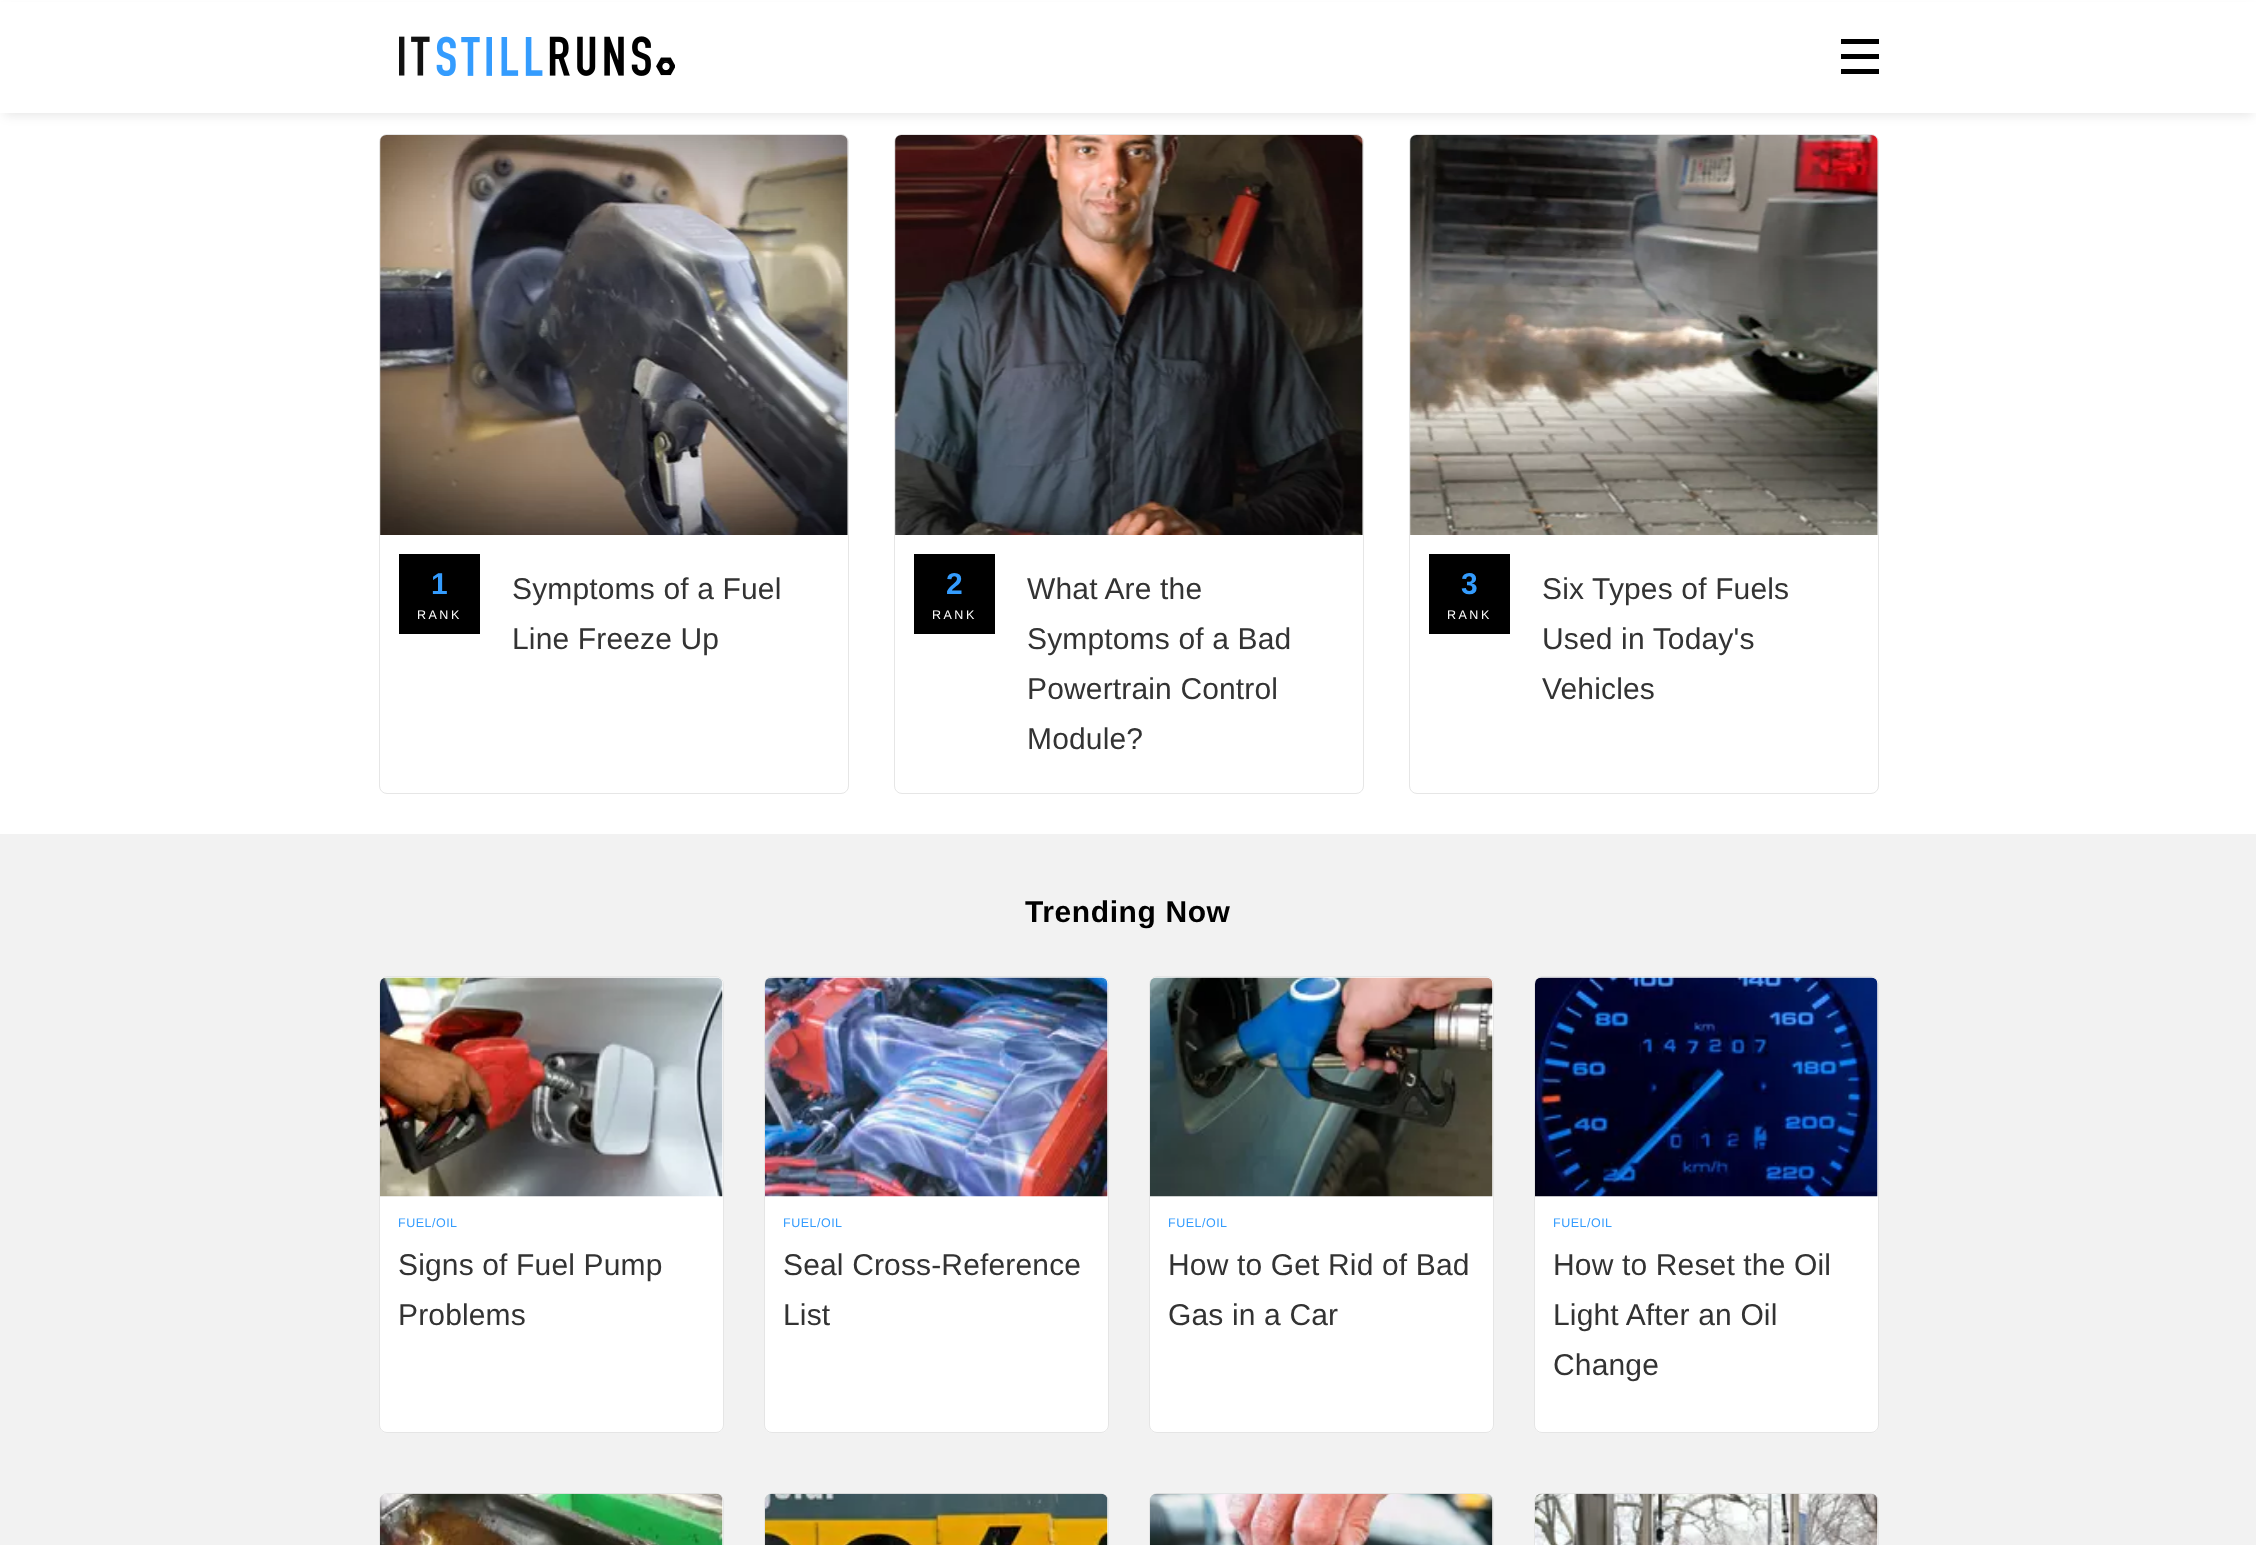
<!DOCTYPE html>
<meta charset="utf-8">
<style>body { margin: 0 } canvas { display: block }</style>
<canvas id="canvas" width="2256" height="1545"></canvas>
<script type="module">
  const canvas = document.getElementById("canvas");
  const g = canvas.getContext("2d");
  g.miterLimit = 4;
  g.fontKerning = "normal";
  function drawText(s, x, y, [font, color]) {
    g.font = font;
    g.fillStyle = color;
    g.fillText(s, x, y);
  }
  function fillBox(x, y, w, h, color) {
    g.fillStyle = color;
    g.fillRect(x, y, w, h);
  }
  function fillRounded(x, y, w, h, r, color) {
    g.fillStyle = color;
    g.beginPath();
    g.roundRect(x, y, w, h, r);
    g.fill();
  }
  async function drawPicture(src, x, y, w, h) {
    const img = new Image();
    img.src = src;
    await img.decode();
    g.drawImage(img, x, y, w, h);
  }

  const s1 = ["bold 30px Liberation Sans", "#349CFE"];
  const s2 = ["12.5px Liberation Sans", "#FFFFFF"];
  const s3 = ["30px Liberation Sans", "#333333"];
  const s4 = ["bold 30px Liberation Sans", "#000000"];
  const s5 = ["12.5px Liberation Sans", "#349CFE"];

  fillBox(0, 0, 2256, 1545, "#FFFFFF");
  g.fillStyle = "rgba(0, 0, 0, 0.1)";
  g.filter = "blur(6px)";
  g.beginPath();
  g.rect(4, 10, 2249, 105);
  g.fill();
  g.filter = "none";
  fillBox(0, 2, 2256, 111, "#FFFFFF");
  await drawPicture("pic1.png", 399, 36, 276, 40);
  fillBox(1841, 39, 38, 5, "#000000");
  fillBox(1841, 54, 38, 5, "#000000");
  fillBox(1841, 69, 38, 5, "#000000");
  g.beginPath();
  g.roundRect(379.5, 134.5, 469, 659, 7.5);
  g.strokeStyle = "#E6E6E6";
  g.stroke();
  await drawPicture("pic2.png", 380, 135, 468, 400);
  fillBox(399, 554, 81, 80, "#000000");
  drawText("1", 431, 594, s1);
  g.letterSpacing = "2.5px";
  drawText("RANK", 417, 619, s2);
  g.letterSpacing = "0.15px";
  drawText("Symptoms of a Fuel", 512, 599, s3);
  drawText("Line Freeze Up", 512, 649, s3);
  g.beginPath();
  g.roundRect(894.5, 134.5, 469, 659, 7.5);
  g.stroke();
  await drawPicture("pic3.png", 895, 135, 468, 400);
  fillBox(914, 554, 81, 80, "#000000");
  g.letterSpacing = "0px";
  drawText("2", 946, 594, s1);
  g.letterSpacing = "2.5px";
  drawText("RANK", 932, 619, s2);
  g.letterSpacing = "0.15px";
  drawText("What Are the", 1027, 599, s3);
  drawText("Symptoms of a Bad", 1027, 649, s3);
  drawText("Powertrain Control", 1027, 699, s3);
  drawText("Module?", 1027, 749, s3);
  g.beginPath();
  g.roundRect(1409.5, 134.5, 469, 659, 7.5);
  g.stroke();
  await drawPicture("pic4.png", 1410, 135, 468, 400);
  fillBox(1429, 554, 81, 80, "#000000");
  g.letterSpacing = "0px";
  drawText("3", 1461, 594, s1);
  g.letterSpacing = "2.5px";
  drawText("RANK", 1447, 619, s2);
  g.letterSpacing = "0.15px";
  drawText("Six Types of Fuels", 1542, 599, s3);
  drawText("Used in Today's", 1542, 649, s3);
  drawText("Vehicles", 1542, 699, s3);
  fillBox(0, 834, 2256, 711, "#F2F2F2");
  g.letterSpacing = "0.6px";
  drawText("Trending Now", 1025, 922, s4);
  fillRounded(379, 976, 345, 457, 8, "#FFFFFF");
  g.beginPath();
  g.roundRect(379.5, 976.5, 344, 456, 7.5);
  g.strokeStyle = "rgba(0, 0, 0, 0.1)";
  g.stroke();
  await drawPicture("pic5.png", 380, 977, 343, 220);
  g.letterSpacing = "0.5px";
  drawText("FUEL/OIL", 398, 1227, s5);
  g.letterSpacing = "0.15px";
  drawText("Signs of Fuel Pump", 398, 1275, s3);
  drawText("Problems", 398, 1325, s3);
  fillRounded(764, 976, 345, 457, 8, "#FFFFFF");
  g.beginPath();
  g.roundRect(764.5, 976.5, 344, 456, 7.5);
  g.stroke();
  await drawPicture("pic6.png", 765, 977, 343, 220);
  g.letterSpacing = "0.5px";
  drawText("FUEL/OIL", 783, 1227, s5);
  g.letterSpacing = "0.15px";
  drawText("Seal Cross-Reference", 783, 1275, s3);
  drawText("List", 783, 1325, s3);
  fillRounded(1149, 976, 345, 457, 8, "#FFFFFF");
  g.beginPath();
  g.roundRect(1149.5, 976.5, 344, 456, 7.5);
  g.stroke();
  await drawPicture("pic7.png", 1150, 977, 343, 220);
  g.letterSpacing = "0.5px";
  drawText("FUEL/OIL", 1168, 1227, s5);
  g.letterSpacing = "0.15px";
  drawText("How to Get Rid of Bad", 1168, 1275, s3);
  drawText("Gas in a Car", 1168, 1325, s3);
  fillRounded(1534, 976, 345, 457, 8, "#FFFFFF");
  g.beginPath();
  g.roundRect(1534.5, 976.5, 344, 456, 7.5);
  g.stroke();
  await drawPicture("pic8.png", 1535, 977, 343, 220);
  g.letterSpacing = "0.5px";
  drawText("FUEL/OIL", 1553, 1227, s5);
  g.letterSpacing = "0.15px";
  drawText("How to Reset the Oil", 1553, 1275, s3);
  drawText("Light After an Oil", 1553, 1325, s3);
  drawText("Change", 1553, 1375, s3);
  fillRounded(379, 1493, 345, 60, 8, "#FFFFFF");
  g.beginPath();
  g.roundRect(379.5, 1493.5, 344, 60, 7.5);
  g.stroke();
  await drawPicture("pic9.png", 380, 1493, 343, 52);
  fillRounded(764, 1493, 345, 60, 8, "#FFFFFF");
  g.beginPath();
  g.roundRect(764.5, 1493.5, 344, 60, 7.5);
  g.stroke();
  await drawPicture("pic10.png", 765, 1493, 343, 52);
  fillRounded(1149, 1493, 345, 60, 8, "#FFFFFF");
  g.beginPath();
  g.roundRect(1149.5, 1493.5, 344, 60, 7.5);
  g.stroke();
  await drawPicture("pic11.png", 1150, 1493, 343, 52);
  fillRounded(1534, 1493, 345, 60, 8, "#FFFFFF");
  g.beginPath();
  g.roundRect(1534.5, 1493.5, 344, 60, 7.5);
  g.stroke();
  await drawPicture("pic12.png", 1535, 1493, 343, 52);
</script>
